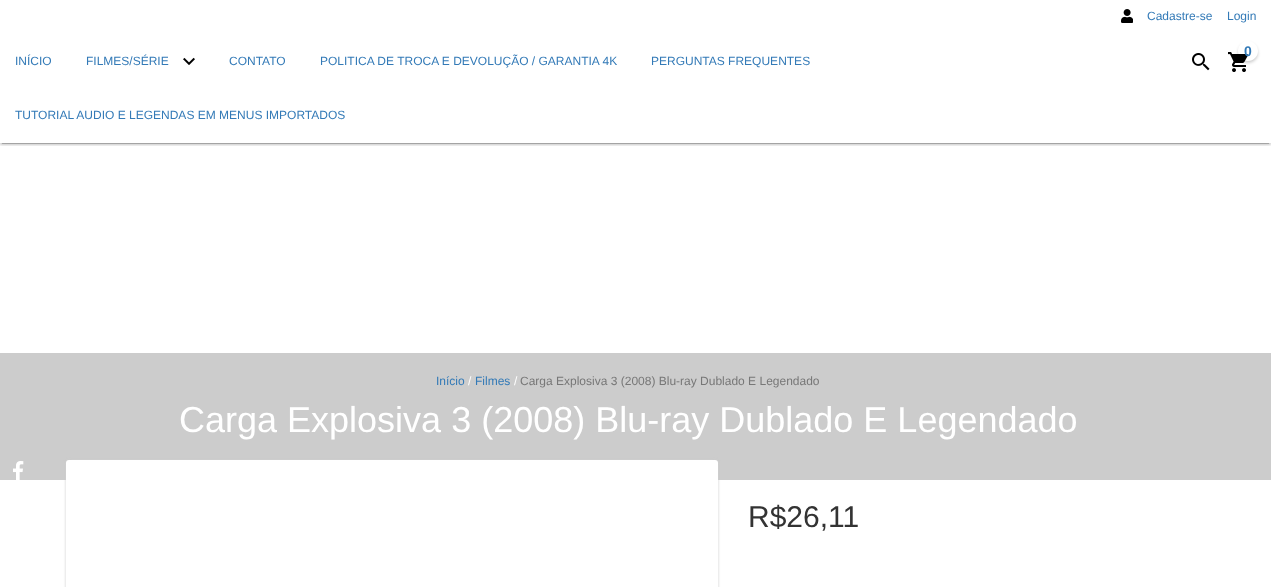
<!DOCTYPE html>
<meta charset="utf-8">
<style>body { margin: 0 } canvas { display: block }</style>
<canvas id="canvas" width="1271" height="587"></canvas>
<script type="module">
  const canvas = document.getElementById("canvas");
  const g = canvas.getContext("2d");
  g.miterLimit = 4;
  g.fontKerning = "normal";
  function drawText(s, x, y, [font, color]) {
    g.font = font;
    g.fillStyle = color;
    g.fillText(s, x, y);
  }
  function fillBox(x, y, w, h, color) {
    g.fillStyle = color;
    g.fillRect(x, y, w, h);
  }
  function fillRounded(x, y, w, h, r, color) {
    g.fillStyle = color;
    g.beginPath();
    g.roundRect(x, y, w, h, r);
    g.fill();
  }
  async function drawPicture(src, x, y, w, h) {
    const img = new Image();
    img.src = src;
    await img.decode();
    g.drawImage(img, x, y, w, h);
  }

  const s1 = ["12px Liberation Sans", "#337AB7"];
  const s2 = ["bold 14px Liberation Sans", "#337AB7"];
  const s3 = ["12px Liberation Sans", "#FFFFFF"];
  const s4 = ["12px Liberation Sans", "#777777"];
  const s5 = ["36px Liberation Sans", "#FFFFFF"];
  const s6 = ["30px Liberation Sans", "#333333"];

  fillBox(0, 0, 1271, 587, "#FFFFFF");
  g.save();
  g.beginPath();
  g.rect(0, 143, 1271, 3);
  g.clip();
  g.fillStyle = "rgba(0, 0, 0, 0.12)";
  g.filter = "blur(2.5px)";
  g.beginPath();
  g.rect(0, 1, 1271, 143);
  g.fill();
  g.filter = "none";
  g.restore();
  g.save();
  g.beginPath();
  g.rect(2, 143, 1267, 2);
  g.clip();
  g.fillStyle = "rgba(0, 0, 0, 0.2)";
  g.filter = "blur(0.5px)";
  g.beginPath();
  g.rect(2, 5, 1267, 139);
  g.fill();
  g.filter = "none";
  g.restore();
  g.save();
  g.beginPath();
  g.rect(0, 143, 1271, 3);
  g.clip();
  g.fillStyle = "rgba(0, 0, 0, 0.14)";
  g.filter = "blur(1px)";
  g.beginPath();
  g.rect(0, 2, 1271, 143);
  g.fill();
  g.filter = "none";
  g.restore();
  await drawPicture("pic1.png", 1121, 9, 12, 14);
  drawText("Cadastre-se", 1147, 20, s1);
  drawText("Login", 1227, 20, s1);
  await drawPicture("pic2.png", 1228, 52, 20, 20);
  g.save();
  g.beginPath();
  g.moveTo(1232, 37);
  g.lineTo(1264, 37);
  g.lineTo(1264, 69);
  g.lineTo(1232, 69);
  g.closePath();
  g.moveTo(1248, 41);
  g.bezierCurveTo(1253.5, 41, 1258, 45.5, 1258, 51);
  g.bezierCurveTo(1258, 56.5, 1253.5, 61, 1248, 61);
  g.bezierCurveTo(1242.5, 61, 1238, 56.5, 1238, 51);
  g.bezierCurveTo(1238, 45.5, 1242.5, 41, 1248, 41);
  g.closePath();
  g.clip("evenodd");
  g.fillStyle = "rgba(0, 0, 0, 0.2)";
  g.filter = "blur(1.5px)";
  g.beginPath();
  g.roundRect(1238, 43, 20, 20, 10);
  g.fill();
  g.filter = "none";
  g.restore();
  drawText("0", 1244, 56, s2);
  await drawPicture("pic3.png", 1192, 53, 18, 18);
  drawText("INÍCIO", 15, 65, s1);
  drawText("FILMES/SÉRIE", 86, 65, s1);
  await drawPicture("pic4.png", 183, 57, 12, 8);
  drawText("CONTATO", 229, 65, s1);
  drawText("POLITICA DE TROCA E DEVOLUÇÃO / GARANTIA 4K", 320, 65, s1);
  drawText("PERGUNTAS FREQUENTES", 651, 65, s1);
  drawText("TUTORIAL AUDIO E LEGENDAS EM MENUS IMPORTADOS", 15, 119, s1);
  fillBox(0, 353, 1271, 127, "#CCCCCC");
  drawText("Início", 436, 385, s1);
  drawText("/", 468, 385, s3);
  drawText("Filmes", 475, 385, s1);
  drawText("/", 514, 385, s3);
  drawText("Carga Explosiva 3 (2008) Blu-ray Dublado E Legendado", 520, 385, s4);
  drawText("Carga Explosiva 3 (2008) Blu-ray Dublado E Legendado", 179, 432, s5);
  await drawPicture("pic5.png", 13, 461, 11, 19);
  g.fillStyle = "#CCCCCC";
  g.filter = "blur(1.5px)";
  g.beginPath();
  g.roundRect(66, 460, 652, 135, 3);
  g.fill();
  g.filter = "none";
  fillRounded(66, 460, 652, 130, 3, "#FFFFFF");
  drawText("R$26,11", 748, 527, s6);
</script>
